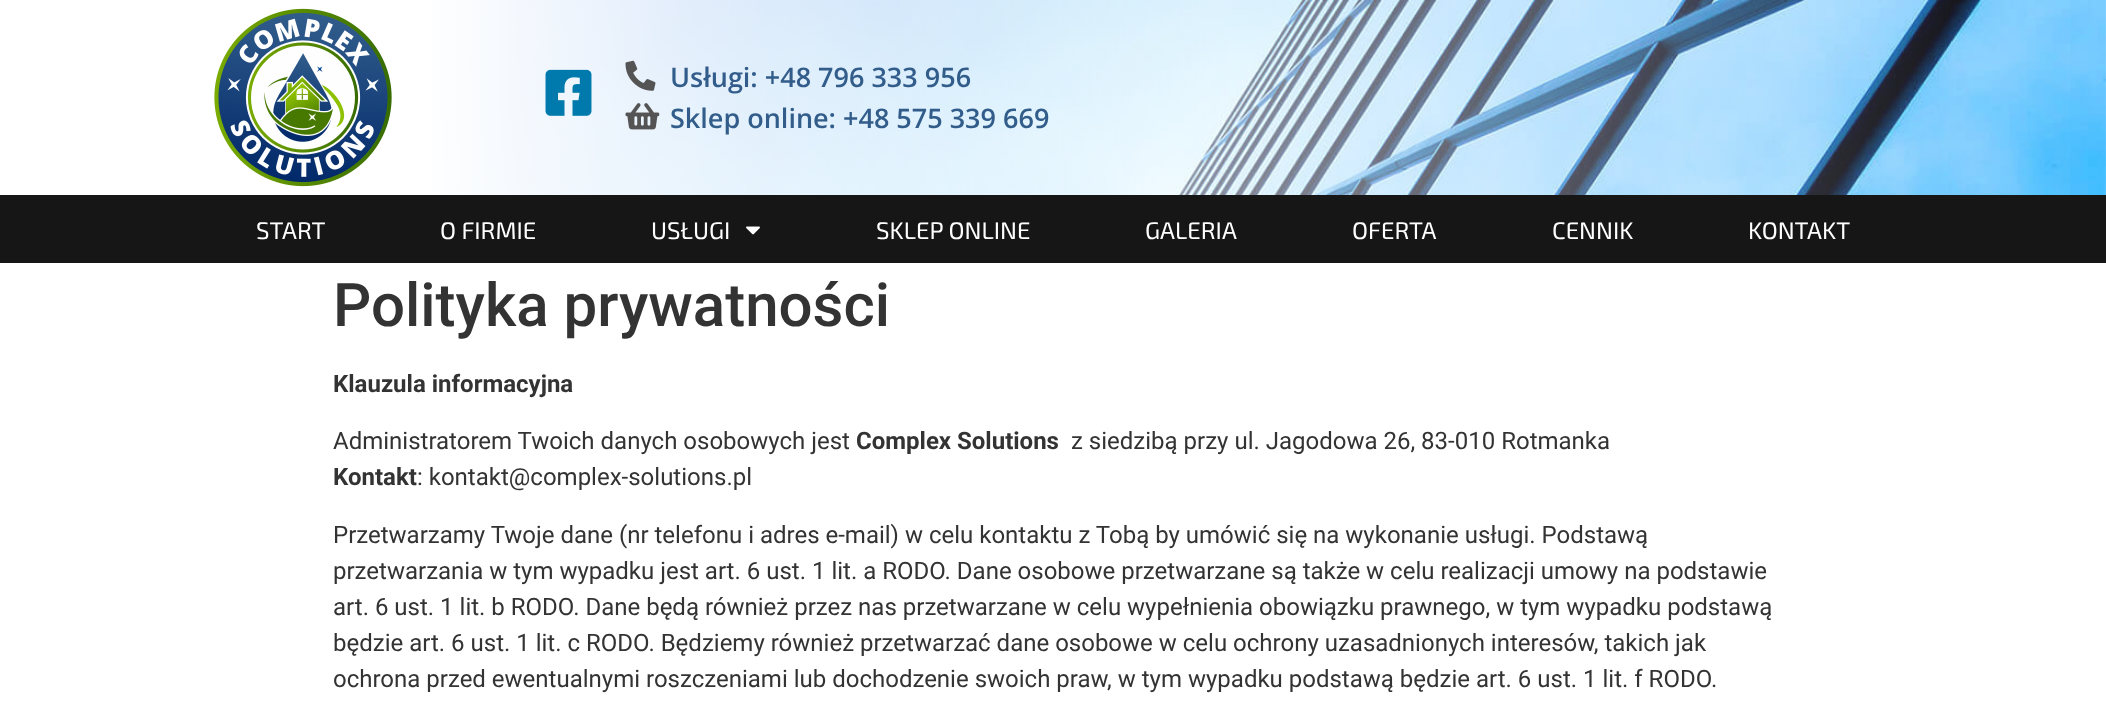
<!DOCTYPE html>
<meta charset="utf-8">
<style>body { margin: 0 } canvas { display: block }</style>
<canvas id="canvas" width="2106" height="705"></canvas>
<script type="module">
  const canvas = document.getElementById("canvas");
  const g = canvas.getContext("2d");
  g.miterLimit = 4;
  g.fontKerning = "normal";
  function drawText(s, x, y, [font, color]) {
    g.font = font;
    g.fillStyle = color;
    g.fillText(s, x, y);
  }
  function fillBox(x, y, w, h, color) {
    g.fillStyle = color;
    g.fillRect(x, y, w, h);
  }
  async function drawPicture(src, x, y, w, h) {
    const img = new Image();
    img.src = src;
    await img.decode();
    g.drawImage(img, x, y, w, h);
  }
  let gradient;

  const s1 = ["600 27px Open Sans", "#325D8B"];
  const s2 = ["24px 'Exo 2'", "#FFFFFF"];
  const s3 = ["500 60px Roboto", "#333333"];
  const s4 = ["bold 24px Roboto", "#333333"];
  const s5 = ["24px Roboto", "#333333"];

  fillBox(0, 0, 2106, 705, "#FFFFFF");
  await drawPicture("pic1.png", 431, 0, 1675, 195);
  gradient = g.createLinearGradient(0, 129, 2106, 129);
  gradient.addColorStop(0.2, "#FFFFFF");
  gradient.addColorStop(1, "rgba(255, 255, 255, 0)");
  g.fillStyle = gradient;
  g.fillRect(431, 0, 1639, 195);
  await drawPicture("pic2.png", 214, 8, 178, 179);
  await drawPicture("pic3.png", 545, 69, 47, 47);
  await drawPicture("pic4.png", 625, 60, 31, 31);
  drawText("Usługi: +48 796 333 956", 670, 87, s1);
  await drawPicture("pic5.png", 625, 103, 35, 27);
  drawText("Sklep online: +48 575 339 669", 670, 128, s1);
  fillBox(0, 195, 2106, 68, "#161616");
  drawText("START", 256, 239, s2);
  drawText("O FIRMIE", 440, 239, s2);
  drawText("USŁUGI", 651, 239, s2);
  await drawPicture("pic6.png", 746, 226, 14, 9);
  drawText("SKLEP ONLINE", 876, 239, s2);
  drawText("GALERIA", 1145, 239, s2);
  drawText("OFERTA", 1352, 239, s2);
  drawText("CENNIK", 1552, 239, s2);
  drawText("KONTAKT", 1748, 239, s2);
  drawText("Polityka prywatności", 333, 326, s3);
  drawText("Klauzula informacyjna", 333, 392, s4);
  drawText("Administratorem Twoich danych osobowych jest", 333, 449, s5);
  drawText("Complex Solutions", 856, 449, s4);
  drawText("z siedzibą przy ul. Jagodowa 26, 83-010 Rotmanka", 1071, 449, s5);
  drawText("Kontakt", 333, 485, s4);
  drawText(": kontakt@complex-solutions.pl", 417, 485, s5);
  drawText("Przetwarzamy Twoje dane (nr telefonu i adres e-mail) w celu kontaktu z Tobą by umówić się na wykonanie usługi. Podstawą", 333, 543, s5);
  drawText("przetwarzania w tym wypadku jest art. 6 ust. 1 lit. a RODO. Dane osobowe przetwarzane są także w celu realizacji umowy na podstawie", 333, 579, s5);
  drawText("art. 6 ust. 1 lit. b RODO. Dane będą również przez nas przetwarzane w celu wypełnienia obowiązku prawnego, w tym wypadku podstawą", 333, 615, s5);
  drawText("będzie art. 6 ust. 1 lit. c RODO. Będziemy również przetwarzać dane osobowe w celu ochrony uzasadnionych interesów, takich jak", 333, 651, s5);
  drawText("ochrona przed ewentualnymi roszczeniami lub dochodzenie swoich praw, w tym wypadku podstawą będzie art. 6 ust. 1 lit. f RODO.", 333, 687, s5);
</script>
